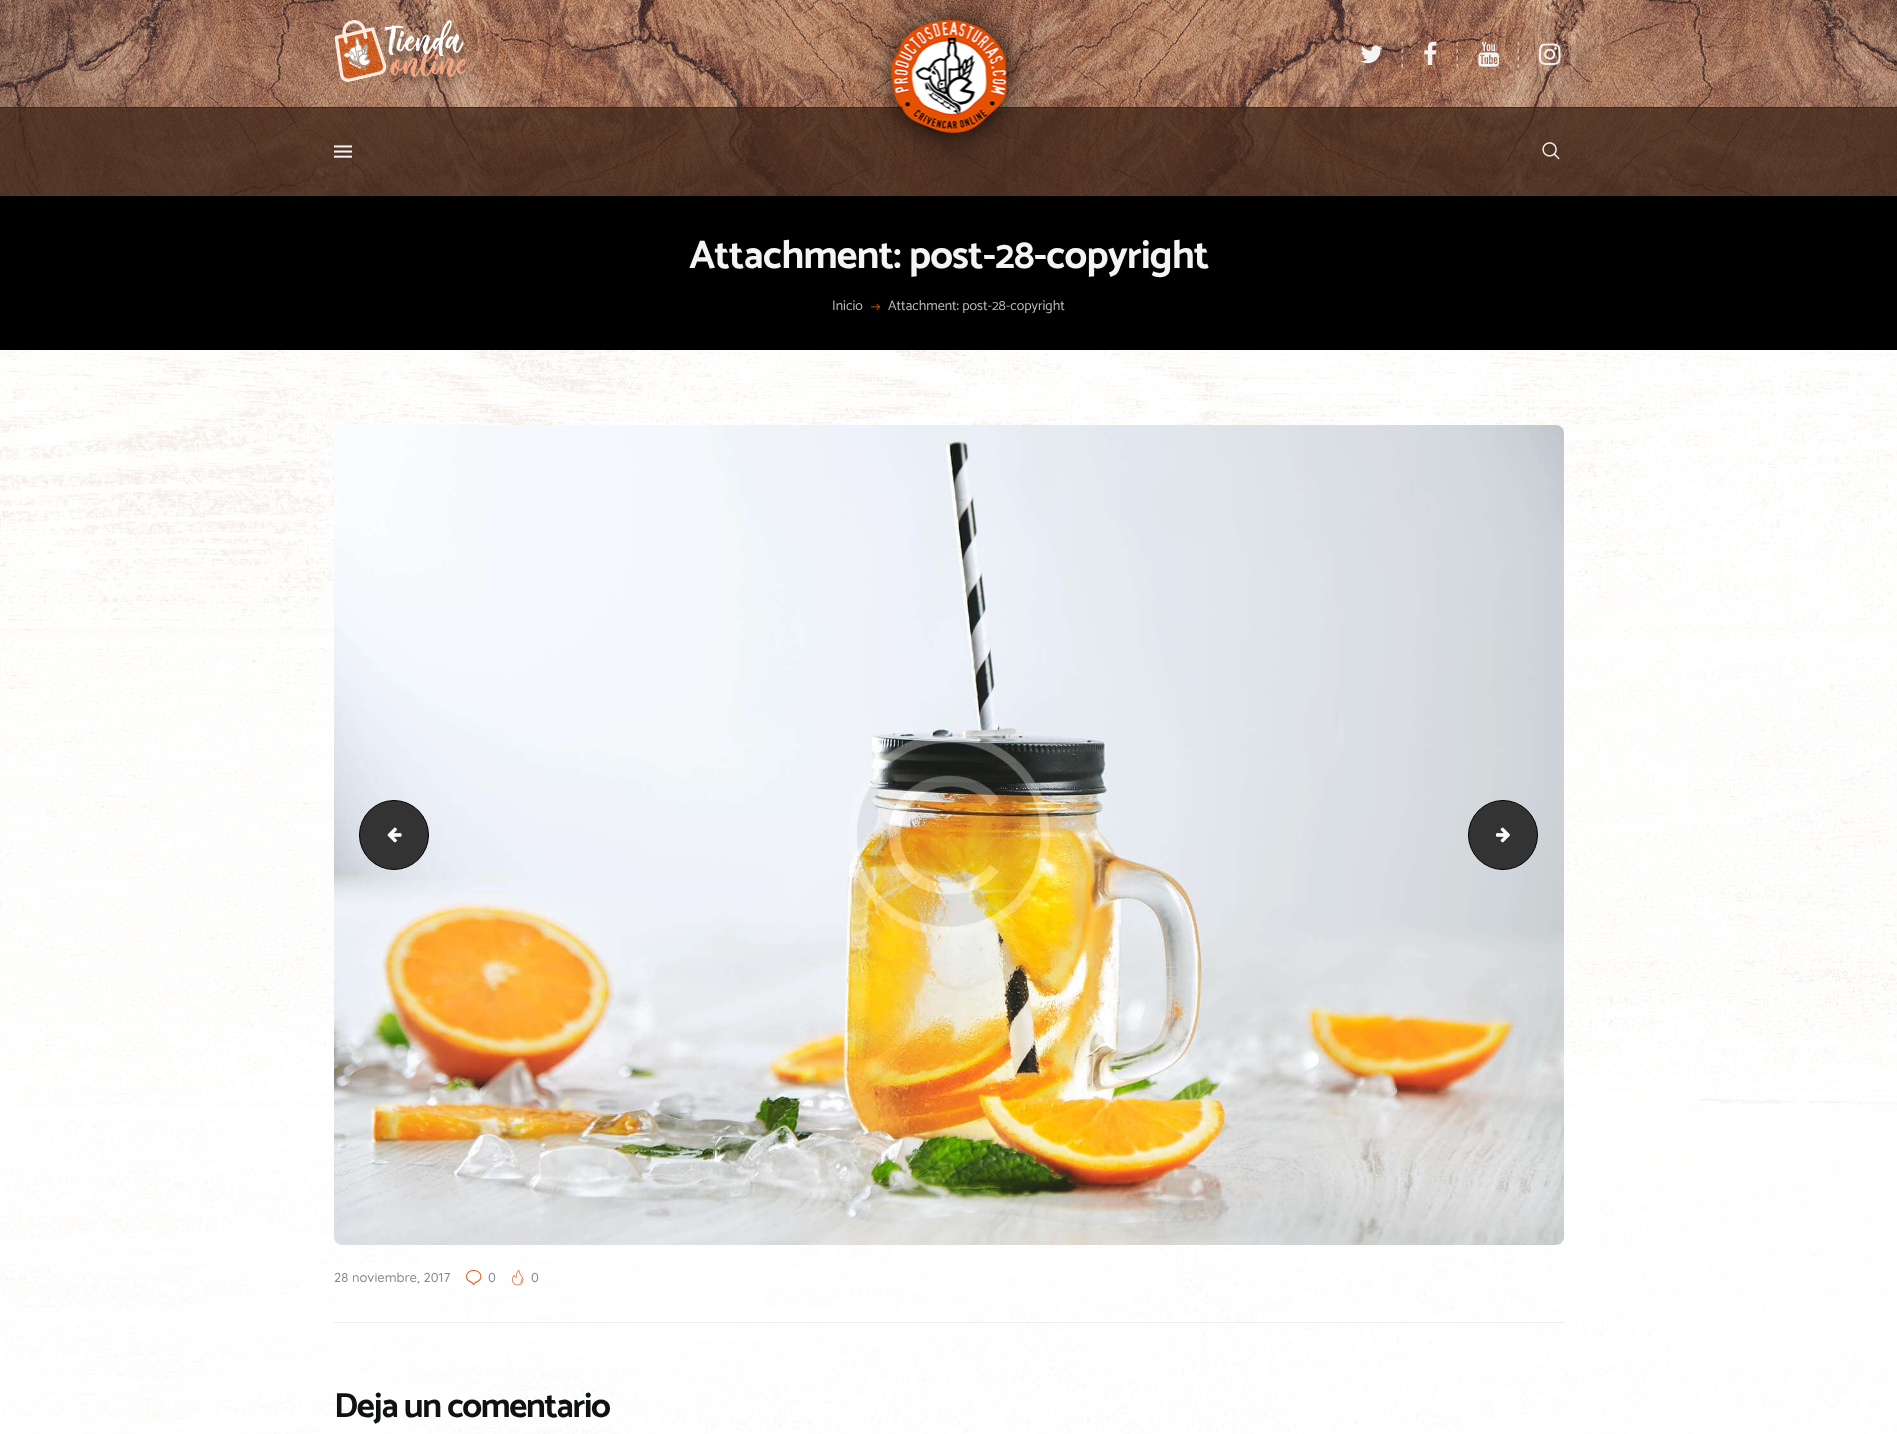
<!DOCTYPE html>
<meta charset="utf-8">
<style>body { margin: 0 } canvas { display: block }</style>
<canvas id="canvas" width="1897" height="1434"></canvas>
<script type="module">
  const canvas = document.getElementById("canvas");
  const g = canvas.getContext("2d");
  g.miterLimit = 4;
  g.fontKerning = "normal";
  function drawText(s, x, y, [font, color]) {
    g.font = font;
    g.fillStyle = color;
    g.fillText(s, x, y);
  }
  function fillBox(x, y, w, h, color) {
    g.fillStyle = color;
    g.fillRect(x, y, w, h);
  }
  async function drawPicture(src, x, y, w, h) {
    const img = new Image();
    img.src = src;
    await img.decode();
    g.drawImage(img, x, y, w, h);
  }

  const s1 = ["bold 40px Catamaran", "#F4F4F4"];
  const s2 = ["14px Catamaran", "#B8BABB"];
  const s3 = ["500 13px Quicksand", "#898989"];
  const s4 = ["bold 35px Catamaran", "#0F1214"];

  fillBox(0, 0, 1897, 1434, "#FFFFFF");
  await drawPicture("pic1.png", 0, 350, 1897, 1084);
  await drawPicture("pic2.png", 0, 0, 1897, 196);
  fillBox(0, 107, 1897, 1, "#2E2C33");
  await drawPicture("pic3.png", 334, 20, 135, 66);
  fillBox(0, 108, 1897, 88, "rgba(65, 40, 26, 0.78)");
  g.save();
  g.beginPath();
  g.moveTo(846, 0);
  g.lineTo(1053, 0);
  g.lineTo(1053, 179);
  g.lineTo(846, 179);
  g.closePath();
  g.moveTo(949, 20);
  g.bezierCurveTo(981, 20, 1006.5, 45.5, 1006.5, 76.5);
  g.bezierCurveTo(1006.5, 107.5, 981, 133, 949, 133);
  g.bezierCurveTo(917, 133, 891.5, 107.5, 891.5, 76.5);
  g.bezierCurveTo(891.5, 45.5, 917, 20, 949, 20);
  g.closePath();
  g.clip("evenodd");
  g.fillStyle = "rgba(0, 0, 0, 0.8)";
  g.filter = "blur(15px)";
  g.beginPath();
  g.roundRect(892, 20, 115, 113, 56.5);
  g.fill();
  g.filter = "none";
  g.restore();
  g.fillStyle = "rgba(0, 0, 0, 0.5)";
  g.beginPath();
  g.ellipse(949, 76.5, 57.5, 56.5, 0, 0, Math.PI * 2);
  g.fill();
  await drawPicture("pic4.png", 891, 20, 116, 113);
  await drawPicture("pic5.png", 1360, 45, 23, 19);
  await drawPicture("pic6.png", 1401, 41, 2, 27);
  await drawPicture("pic7.png", 1424, 41, 13, 24);
  await drawPicture("pic8.png", 1456, 41, 2, 27);
  await drawPicture("pic9.png", 1478, 41, 21, 26);
  await drawPicture("pic10.png", 1517, 41, 2, 27);
  await drawPicture("pic11.png", 1539, 43, 22, 22);
  await drawPicture("pic12.png", 334, 145, 18, 13);
  await drawPicture("pic13.png", 1542, 142, 18, 18);
  fillBox(0, 196, 1897, 154, "#000000");
  g.letterSpacing = "-0.75px";
  drawText("Attachment: post-28-copyright", 689, 268, s1);
  g.letterSpacing = "0px";
  drawText("Inicio", 832, 310, s2);
  await drawPicture("pic14.png", 871, 303, 9, 7);
  drawText("Attachment: post-28-copyright", 888, 310, s2);
  await drawPicture("pic15.png", 334, 425, 1230, 820);
  g.fillStyle = "#333333";
  g.beginPath();
  g.arc(394, 835, 34.5, 0, Math.PI * 2);
  g.fill();
  g.strokeStyle = "#000000";
  g.stroke();
  await drawPicture("pic16.png", 387, 827, 15, 16);
  g.beginPath();
  g.arc(1503, 835, 34.5, 0, Math.PI * 2);
  g.fill();
  g.stroke();
  await drawPicture("pic17.png", 1496, 827, 14, 16);
  drawText("28 noviembre, 2017", 334, 1282, s3);
  await drawPicture("pic18.png", 466, 1270, 16, 16);
  drawText("0", 488, 1282, s3);
  await drawPicture("pic19.png", 512, 1270, 12, 16);
  drawText("0", 531, 1282, s3);
  fillBox(334, 1322, 1230, 1, "#EDEDED");
  g.letterSpacing = "-1.4px";
  drawText("Deja un comentario", 334, 1417, s4);
</script>
